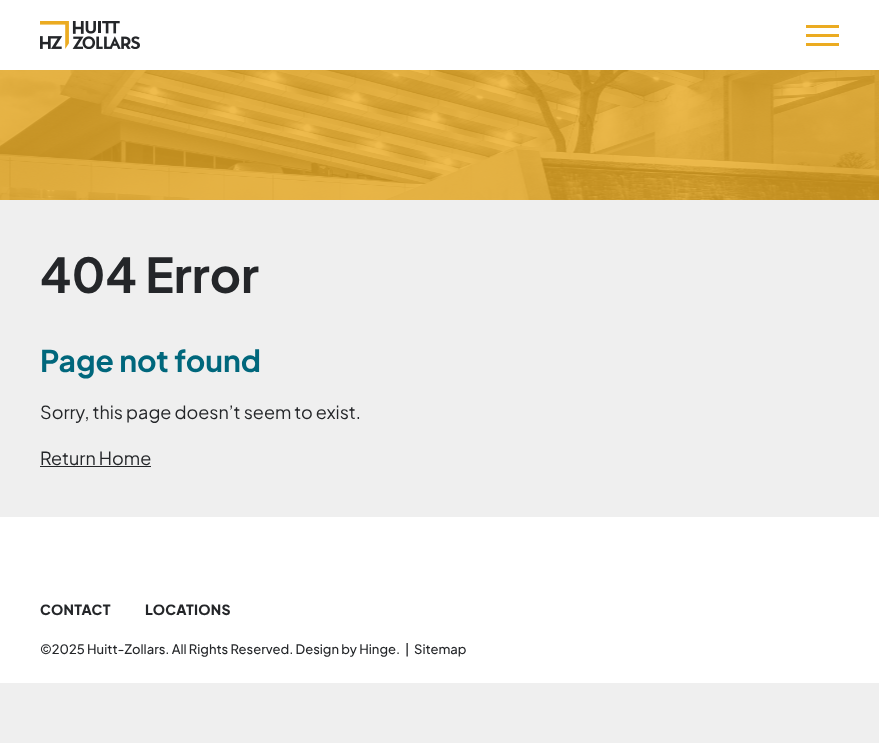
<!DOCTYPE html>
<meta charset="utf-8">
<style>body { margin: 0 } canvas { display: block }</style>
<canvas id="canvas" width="879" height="743"></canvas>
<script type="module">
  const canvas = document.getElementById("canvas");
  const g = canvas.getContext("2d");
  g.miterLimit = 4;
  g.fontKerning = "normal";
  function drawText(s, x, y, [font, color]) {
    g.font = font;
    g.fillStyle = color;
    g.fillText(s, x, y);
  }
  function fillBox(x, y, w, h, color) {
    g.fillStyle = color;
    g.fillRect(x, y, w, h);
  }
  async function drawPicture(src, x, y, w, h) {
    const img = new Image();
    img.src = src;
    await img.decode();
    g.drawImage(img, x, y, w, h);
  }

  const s1 = ["bold 48px Plus Jakarta Sans", "#242629"];
  const s2 = ["bold 30px Plus Jakarta Sans", "#00677C"];
  const s3 = ["18px Plus Jakarta Sans", "#242629"];
  const s4 = ["800 14px Plus Jakarta Sans", "#242629"];
  const s5 = ["500 13px Plus Jakarta Sans", "#242629"];

  fillBox(0, 0, 879, 743, "#EFEFEF");
  fillBox(0, 0, 879, 70, "#FFFFFF");
  await drawPicture("pic1.png", 40, 21, 100, 28);
  fillBox(806, 34, 33, 3, "#EBAB21");
  fillBox(806, 25, 33, 3, "#EBAB21");
  fillBox(806, 43, 33, 3, "#EBAB21");
  await drawPicture("pic2.png", 0, 70, 879, 130);
  drawText("404 Error", 40, 293, s1);
  drawText("Page not found", 40, 372, s2);
  drawText("Sorry, this page doesn’t seem to exist.", 40, 419, s3);
  drawText("Return Home", 40, 465, s3);
  fillBox(40, 466, 111, 1, "#242629");
  fillBox(0, 517, 879, 166, "#FFFFFF");
  g.letterSpacing = "0.25px";
  drawText("CONTACT", 40, 615, s4);
  drawText("LOCATIONS", 145, 615, s4);
  g.letterSpacing = "0px";
  drawText("©2025 Huitt-Zollars. All Rights Reserved. Design by Hinge.", 40, 654, s5);
  drawText("|", 405, 654, s5);
  drawText("Sitemap", 414, 654, s5);
</script>
